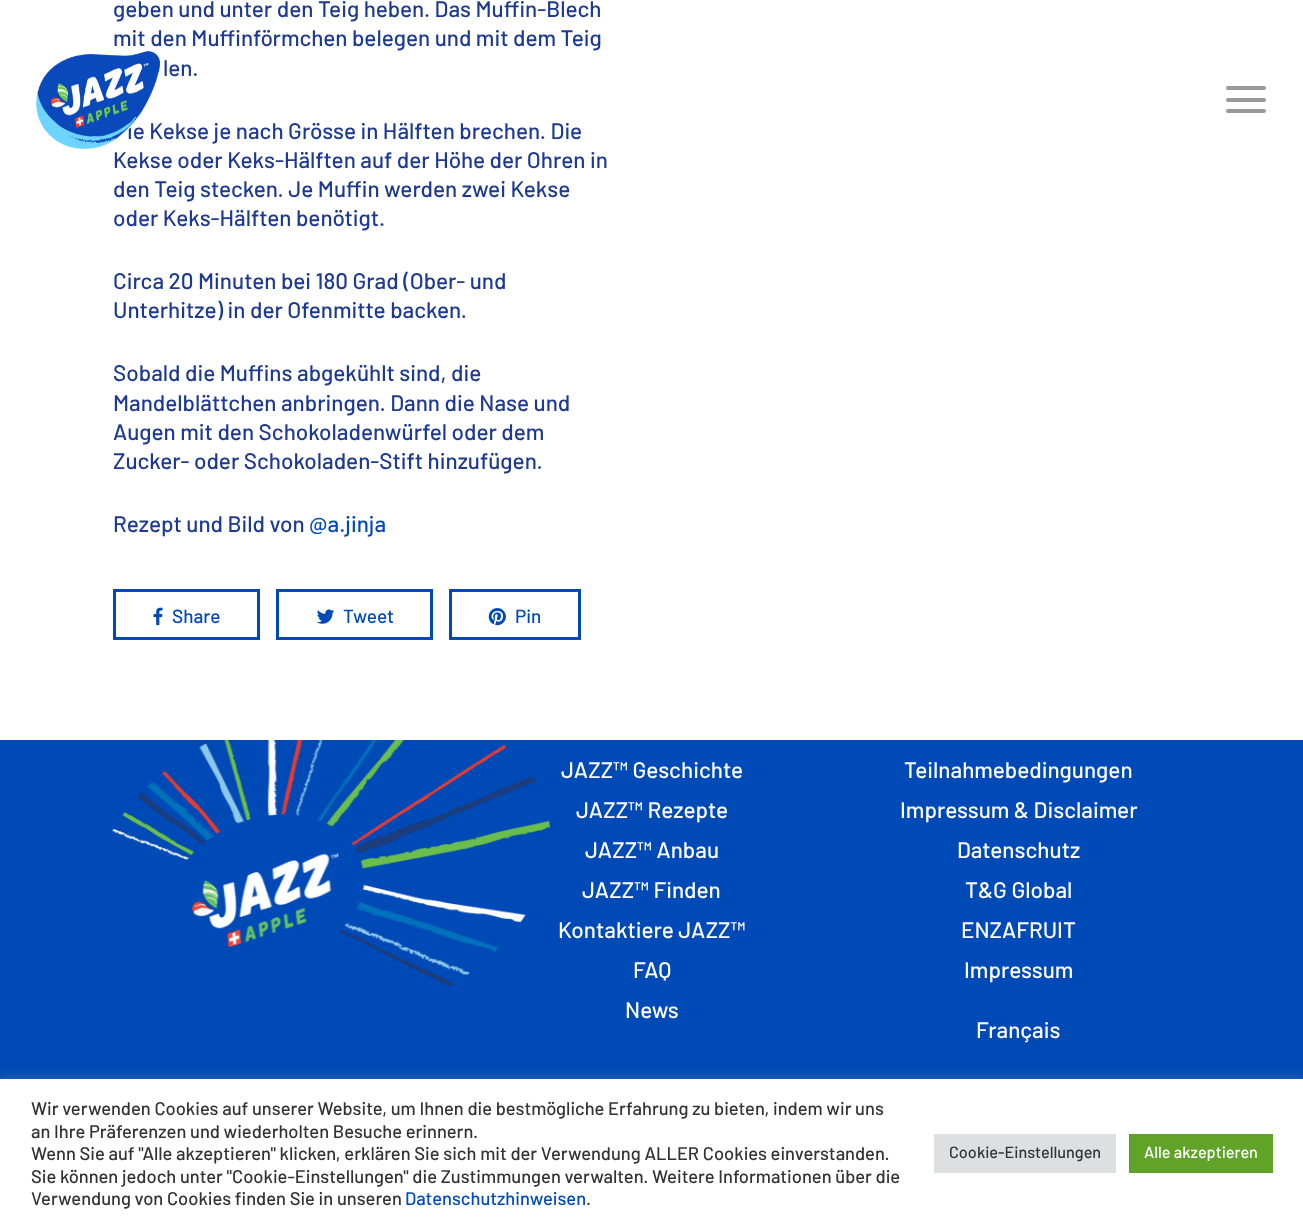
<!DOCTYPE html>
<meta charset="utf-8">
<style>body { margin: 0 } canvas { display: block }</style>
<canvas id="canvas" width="1303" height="1226"></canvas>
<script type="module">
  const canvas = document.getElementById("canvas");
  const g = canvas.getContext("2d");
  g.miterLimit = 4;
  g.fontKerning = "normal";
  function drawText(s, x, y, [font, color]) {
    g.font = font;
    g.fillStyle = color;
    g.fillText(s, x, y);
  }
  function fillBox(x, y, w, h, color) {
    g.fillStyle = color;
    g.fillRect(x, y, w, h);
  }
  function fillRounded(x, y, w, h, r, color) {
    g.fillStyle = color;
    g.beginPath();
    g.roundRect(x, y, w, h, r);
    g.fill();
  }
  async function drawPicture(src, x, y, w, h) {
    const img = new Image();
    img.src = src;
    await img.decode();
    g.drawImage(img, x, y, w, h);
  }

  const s1 = ["500 22.5px Barlow", "#1E3A90"];
  const s2 = ["500 22.5px Barlow", "#004AB7"];
  const s3 = ["500 19px Barlow", "#004AB7"];
  const s4 = ["500 22.5px Barlow", "#FFFFFF"];
  const s5 = ["500 18.35px Barlow", "#333333"];
  const s6 = ["500 18.35px Barlow", "#004AB7"];
  const s7 = ["500 16.25px Barlow", "#333333"];
  const s8 = ["500 16.25px Barlow", "#FFFFFF"];

  fillBox(0, 0, 1303, 1226, "#004AB7");
  fillBox(0, 0, 1303, 740, "#FFFFFF");
  drawText("geben und unter den Teig heben. Das Muffin-Blech", 113, 17, s1);
  drawText("mit den Muffinförmchen belegen und mit dem Teig", 113, 46, s1);
  drawText("len.", 163, 76, s1);
  drawText("ie Kekse je nach Grösse in Hälften brechen. Die", 127, 139, s1);
  drawText("Kekse oder Keks-Hälften auf der Höhe der Ohren in", 113, 168, s1);
  drawText("den Teig stecken. Je Muffin werden zwei Kekse", 113, 197, s1);
  drawText("oder Keks-Hälften benötigt.", 113, 226, s1);
  drawText("Circa 20 Minuten bei 180 Grad (Ober- und", 113, 289, s1);
  drawText("Unterhitze) in der Ofenmitte backen.", 113, 318, s1);
  drawText("Sobald die Muffins abgekühlt sind, die", 113, 381, s1);
  drawText("Mandelblättchen anbringen. Dann die Nase und", 113, 411, s1);
  drawText("Augen mit den Schokoladenwürfel oder dem", 113, 440, s1);
  drawText("Zucker- oder Schokoladen-Stift hinzufügen.", 113, 469, s1);
  drawText("Rezept und Bild von", 113, 532, s1);
  drawText("@a.jinja", 309, 532, s2);
  g.strokeStyle = "#004AB7";
  g.lineWidth = 3;
  g.strokeRect(114.5, 590.5, 144, 48);
  await drawPicture("pic1.png", 153, 607, 10, 19);
  drawText("Share", 172, 623, s3);
  g.strokeRect(277.5, 590.5, 154, 48);
  await drawPicture("pic2.png", 317, 609, 18, 15);
  drawText("Tweet", 343, 623, s3);
  g.strokeRect(450.5, 590.5, 129, 48);
  await drawPicture("pic3.png", 488, 608, 18, 18);
  drawText("Pin", 515, 623, s3);
  await drawPicture("pic4.png", 112, 740, 438, 247);
  drawText("JAZZ™ Geschichte", 561, 778, s4);
  drawText("JAZZ™ Rezepte", 576, 818, s4);
  drawText("JAZZ™ Anbau", 585, 858, s4);
  drawText("JAZZ™ Finden", 582, 898, s4);
  drawText("Kontaktiere JAZZ™", 558, 938, s4);
  drawText("FAQ", 633, 978, s4);
  drawText("News", 625, 1018, s4);
  drawText("Teilnahmebedingungen", 904, 778, s4);
  drawText("Impressum & Disclaimer", 900, 818, s4);
  drawText("Datenschutz", 957, 858, s4);
  drawText("T&G Global", 965, 898, s4);
  drawText("ENZAFRUIT", 961, 938, s4);
  drawText("Impressum", 964, 978, s4);
  drawText("Français", 976, 1038, s4);
  await drawPicture("pic5.png", 36, 51, 125, 98);
  fillRounded(1226, 86, 40, 4, 2, "#999999");
  fillRounded(1226, 109, 40, 4, 2, "#999999");
  fillRounded(1226, 98, 40, 4, 2, "#999999");
  g.fillStyle = "rgba(172, 171, 171, 0.3)";
  g.filter = "blur(6px)";
  g.beginPath();
  g.rect(0, 1078, 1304, 147);
  g.fill();
  g.filter = "none";
  fillBox(0, 1079, 1303, 147, "#FFFFFF");
  drawText("Wir verwenden Cookies auf unserer Website, um Ihnen die bestmögliche Erfahrung zu bieten, indem wir uns", 31, 1115, s5);
  drawText("an Ihre Präferenzen und wiederholten Besuche erinnern.", 31, 1138, s5);
  drawText("Wenn Sie auf \"Alle akzeptieren\" klicken, erklären Sie sich mit der Verwendung ALLER Cookies einverstanden.", 31, 1160, s5);
  drawText("Sie können jedoch unter \"Cookie-Einstellungen\" die Zustimmungen verwalten. Weitere Informationen über die", 31, 1183, s5);
  drawText("Verwendung von Cookies finden Sie in unseren", 31, 1205, s5);
  drawText("Datenschutzhinweisen", 405, 1205, s6);
  drawText(".", 586, 1205, s5);
  fillBox(934, 1134, 182, 39, "#DEDFE0");
  drawText("Cookie-Einstellungen", 949, 1158, s7);
  fillBox(1129, 1134, 144, 39, "#61A229");
  drawText("Alle akzeptieren", 1144, 1158, s8);
</script>
